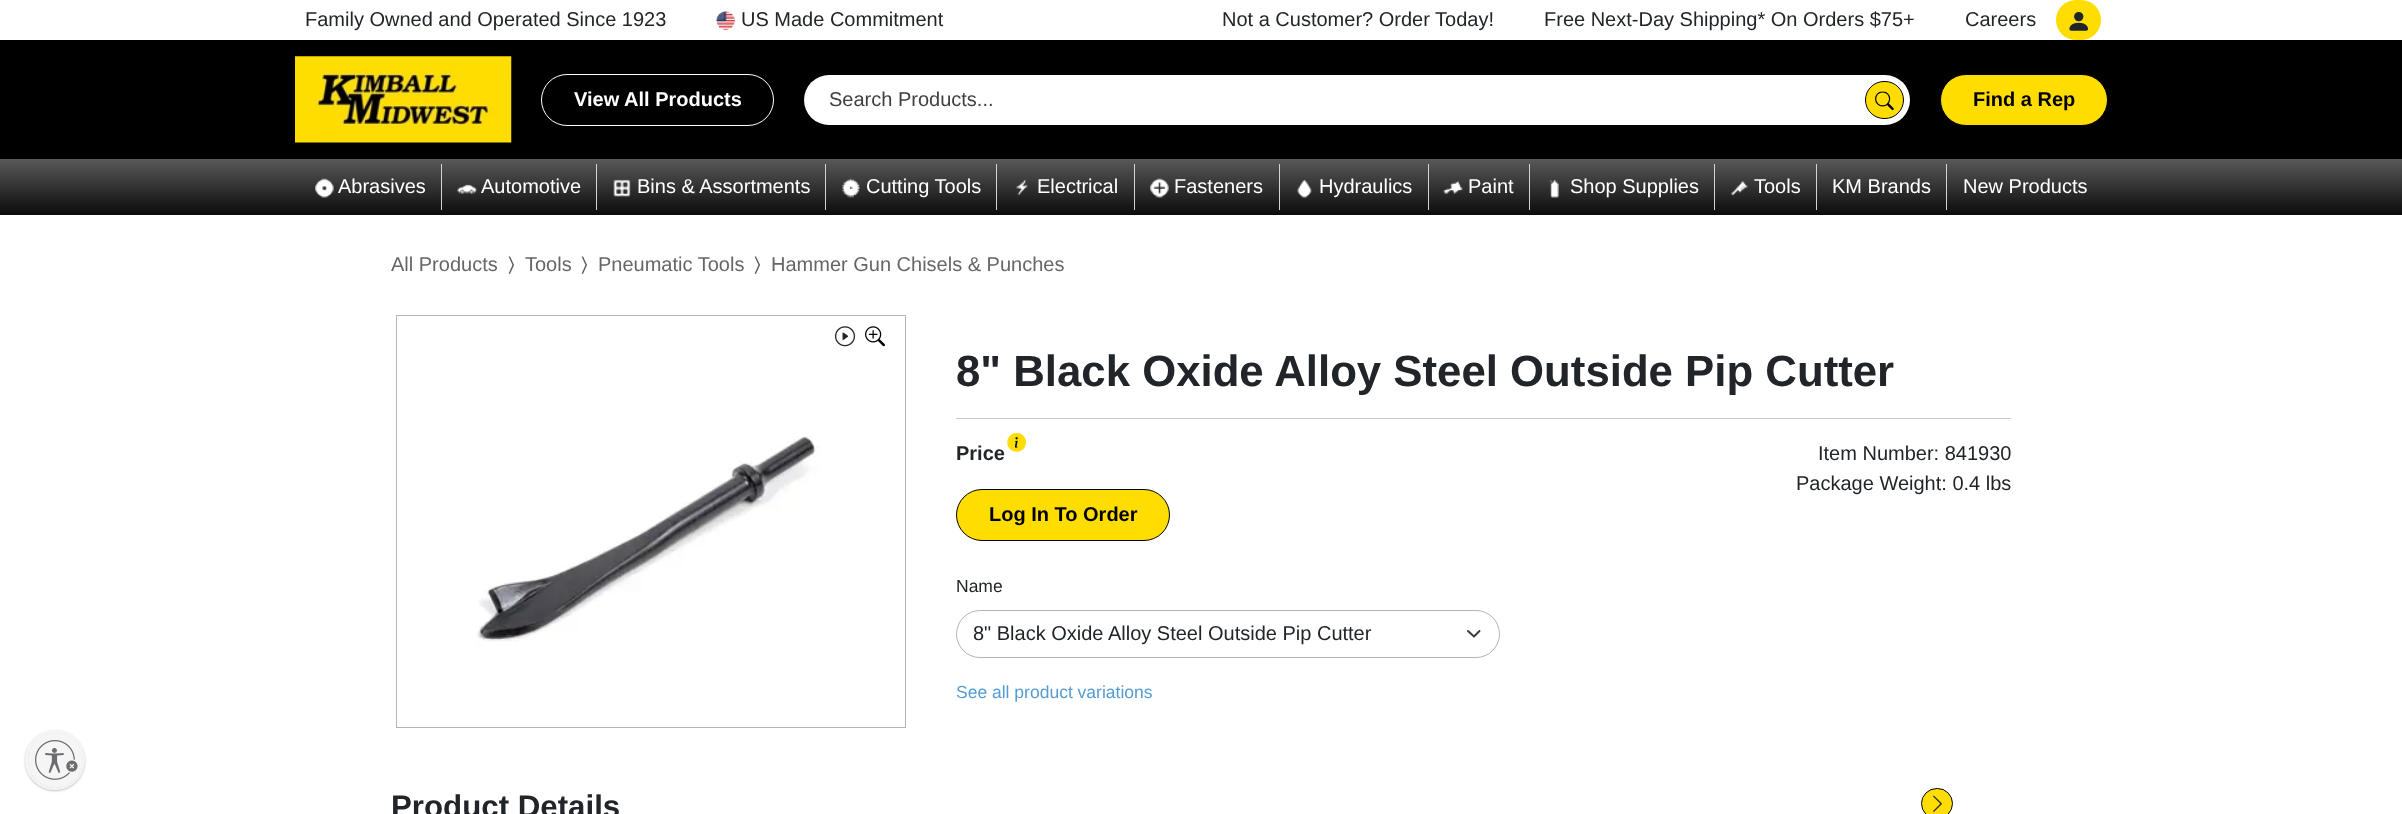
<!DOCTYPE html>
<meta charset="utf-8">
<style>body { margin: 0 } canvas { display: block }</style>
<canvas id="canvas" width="2402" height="814"></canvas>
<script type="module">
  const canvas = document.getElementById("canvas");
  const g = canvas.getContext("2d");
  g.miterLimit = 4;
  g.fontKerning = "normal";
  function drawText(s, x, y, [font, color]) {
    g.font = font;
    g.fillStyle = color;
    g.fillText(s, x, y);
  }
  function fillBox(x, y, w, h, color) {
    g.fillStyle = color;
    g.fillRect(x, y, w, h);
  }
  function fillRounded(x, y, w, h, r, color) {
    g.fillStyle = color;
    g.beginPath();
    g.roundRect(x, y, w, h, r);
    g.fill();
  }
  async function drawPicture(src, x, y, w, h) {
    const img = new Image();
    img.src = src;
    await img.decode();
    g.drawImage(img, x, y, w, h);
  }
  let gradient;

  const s1 = ["20px Liberation Sans", "#212529"];
  const s2 = ["bold 20px Liberation Sans", "#FFFFFF"];
  const s3 = ["20px Liberation Sans", "#404041"];
  const s4 = ["bold 20px Liberation Sans", "#000000"];
  const s5 = ["20px Liberation Sans", "#FFFFFF"];
  const s6 = ["20px Liberation Sans", "#666666"];
  const s7 = ["20px FreeSans", "#595C5F"];
  const s8 = ["bold 43.75px Liberation Sans", "#212529"];
  const s9 = ["bold 20px Liberation Sans", "#212529"];
  const s10 = ["17.5px Liberation Sans", "#212529"];
  const s11 = ["17.5px Liberation Sans", "#549CD5"];
  const s12 = ["bold 31.25px Liberation Sans", "#212529"];

  fillBox(0, 0, 2402, 814, "#FFFFFF");
  g.fillStyle = "rgba(0, 0, 0, 0.24)";
  g.filter = "blur(1px)";
  g.beginPath();
  g.roundRect(25, 731, 60, 60, 30);
  g.fill();
  g.filter = "none";
  g.fillStyle = "#EBEBF0";
  g.beginPath();
  g.arc(55, 760, 28.5, 0, Math.PI * 2);
  g.fill();
  g.strokeStyle = "#F5F5F5";
  g.lineWidth = 3;
  g.stroke();
  g.save();
  g.beginPath();
  g.roundRect(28, 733, 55, 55, 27.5);
  g.clip();
  g.fillStyle = "rgba(0, 0, 0, 0.24)";
  g.filter = "blur(1px)";
  g.beginPath();
  g.roundRect(28, 734, 55, 55, 27.5);
  g.fill();
  g.filter = "none";
  g.restore();
  g.fillStyle = "#F5F5F5";
  g.beginPath();
  g.arc(55.5, 760.5, 27.5, 0, Math.PI * 2);
  g.fill();
  await drawPicture("pic1.png", 35, 740, 43, 40);
  drawText("Family Owned and Operated Since 1923", 305, 26, s1);
  await drawPicture("pic2.png", 716, 11, 19, 19);
  drawText("US Made Commitment", 741, 26, s1);
  drawText("Not a Customer? Order Today!", 1222, 26, s1);
  drawText("Free Next-Day Shipping* On Orders $75+", 1544, 26, s1);
  drawText("Careers", 1965, 26, s1);
  fillRounded(2056, 0, 45, 40, 20, "#FFDD00");
  await drawPicture("pic3.png", 2069, 12, 20, 19);
  fillBox(0, 40, 2402, 119, "#000000");
  await drawPicture("pic4.png", 295, 56, 217, 87);
  g.beginPath();
  g.roundRect(541.5, 74.5, 232, 51, 25.5);
  g.strokeStyle = "#FFFFFF";
  g.lineWidth = 1;
  g.stroke();
  drawText("View All Products", 574, 106, s2);
  g.beginPath();
  g.roundRect(1859, 75, 51, 50, [0, 25, 25, 0]);
  g.fill();
  g.beginPath();
  g.roundRect(804, 75, 1056, 50, [25, 0, 0, 25]);
  g.fill();
  drawText("Search Products...", 829, 106, s3);
  g.fillStyle = "#FFDD00";
  g.beginPath();
  g.roundRect(1865.5, 81.5, 38, 37, 18.5);
  g.fill();
  g.strokeStyle = "#000000";
  g.stroke();
  await drawPicture("pic5.png", 1875, 91, 19, 19);
  g.beginPath();
  g.roundRect(1940.5, 74.5, 167, 51, 25.5);
  g.fill();
  g.stroke();
  drawText("Find a Rep", 1973, 106, s4);
  gradient = g.createLinearGradient(1201, 159, 1201, 215);
  gradient.addColorStop(0, "#595959");
  gradient.addColorStop(1, "#0B0B0B");
  g.fillStyle = gradient;
  g.fillRect(0, 159, 2402, 56);
  await drawPicture("pic6.png", 315, 178, 19, 20);
  drawText("Abrasives", 338, 193, s5);
  fillBox(441, 164, 1, 46, "#D1D3D4");
  await drawPicture("pic7.png", 457, 184, 20, 10);
  drawText("Automotive", 481, 193, s5);
  fillBox(596, 164, 1, 46, "#D1D3D4");
  await drawPicture("pic8.png", 613, 179, 18, 18);
  drawText("Bins & Assortments", 637, 193, s5);
  fillBox(825, 164, 1, 46, "#D1D3D4");
  await drawPicture("pic9.png", 842, 178, 18, 20);
  drawText("Cutting Tools", 866, 193, s5);
  fillBox(996, 164, 1, 46, "#D1D3D4");
  await drawPicture("pic10.png", 1016, 179, 12, 17);
  drawText("Electrical", 1037, 193, s5);
  fillBox(1134, 164, 1, 46, "#D1D3D4");
  await drawPicture("pic11.png", 1150, 178, 19, 20);
  drawText("Fasteners", 1174, 193, s5);
  fillBox(1279, 164, 1, 46, "#D1D3D4");
  await drawPicture("pic12.png", 1297, 179, 15, 19);
  drawText("Hydraulics", 1319, 193, s5);
  fillBox(1428, 164, 1, 46, "#D1D3D4");
  await drawPicture("pic13.png", 1443, 181, 20, 13);
  drawText("Paint", 1468, 193, s5);
  fillBox(1529, 164, 1, 46, "#D1D3D4");
  await drawPicture("pic14.png", 1550, 179, 9, 19);
  drawText("Shop Supplies", 1570, 193, s5);
  fillBox(1714, 164, 1, 46, "#D1D3D4");
  await drawPicture("pic15.png", 1731, 181, 17, 15);
  drawText("Tools", 1754, 193, s5);
  fillBox(1816, 164, 1, 46, "#D1D3D4");
  drawText("KM Brands", 1832, 193, s5);
  fillBox(1946, 164, 1, 46, "#D1D3D4");
  drawText("New Products", 1963, 193, s5);
  drawText("All Products", 391, 271, s6);
  drawText("〉", 508, 271, s7);
  drawText("Tools", 525, 271, s6);
  drawText("〉", 581, 271, s7);
  drawText("Pneumatic Tools", 598, 271, s6);
  drawText("〉", 754, 271, s7);
  drawText("Hammer Gun Chisels & Punches", 771, 271, s6);
  g.strokeStyle = "#B3B4B3";
  g.strokeRect(396.5, 315.5, 509, 412);
  await drawPicture("pic16.png", 835, 326, 20, 21);
  await drawPicture("pic17.png", 865, 326, 20, 21);
  await drawPicture("pic18.png", 476, 436, 343, 210);
  drawText("8\" Black Oxide Alloy Steel Outside Pip Cutter", 956, 386, s8);
  fillBox(956, 418, 1055, 1, "#C8C9CA");
  drawText("Price", 956, 460, s9);
  fillBox(1015, 435, 3, 13, "#000000");
  await drawPicture("pic19.png", 1007, 433, 19, 19);
  g.fillStyle = "#FFDD00";
  g.beginPath();
  g.roundRect(956.5, 489.5, 213, 51, 25.5);
  g.fill();
  g.strokeStyle = "#000000";
  g.stroke();
  drawText("Log In To Order", 989, 521, s4);
  drawText("Item Number: 841930", 1818, 460, s1);
  drawText("Package Weight: 0.4 lbs", 1796, 490, s1);
  drawText("Name", 956, 592, s10);
  g.beginPath();
  g.moveTo(1468, 631);
  g.lineTo(1474, 636.5);
  g.lineTo(1479.5, 631);
  g.strokeStyle = "#343A40";
  g.lineWidth = 1.9;
  g.lineCap = "round";
  g.lineJoin = "round";
  g.stroke();
  g.beginPath();
  g.roundRect(956.5, 610.5, 543, 47, 23.5);
  g.strokeStyle = "#B3B4B3";
  g.lineWidth = 1;
  g.lineJoin = "miter";
  g.stroke();
  drawText("8\" Black Oxide Alloy Steel Outside Pip Cutter", 973, 640, s1);
  drawText("See all product variations", 956, 698, s11);
  drawText("Product Details", 391, 817, s12);
  g.fillStyle = "#FFDD00";
  g.beginPath();
  g.roundRect(1921.5, 788.5, 31, 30, 15);
  g.fill();
  g.strokeStyle = "#000000";
  g.stroke();
  await drawPicture("pic20.png", 1933, 795, 9, 17);
</script>
